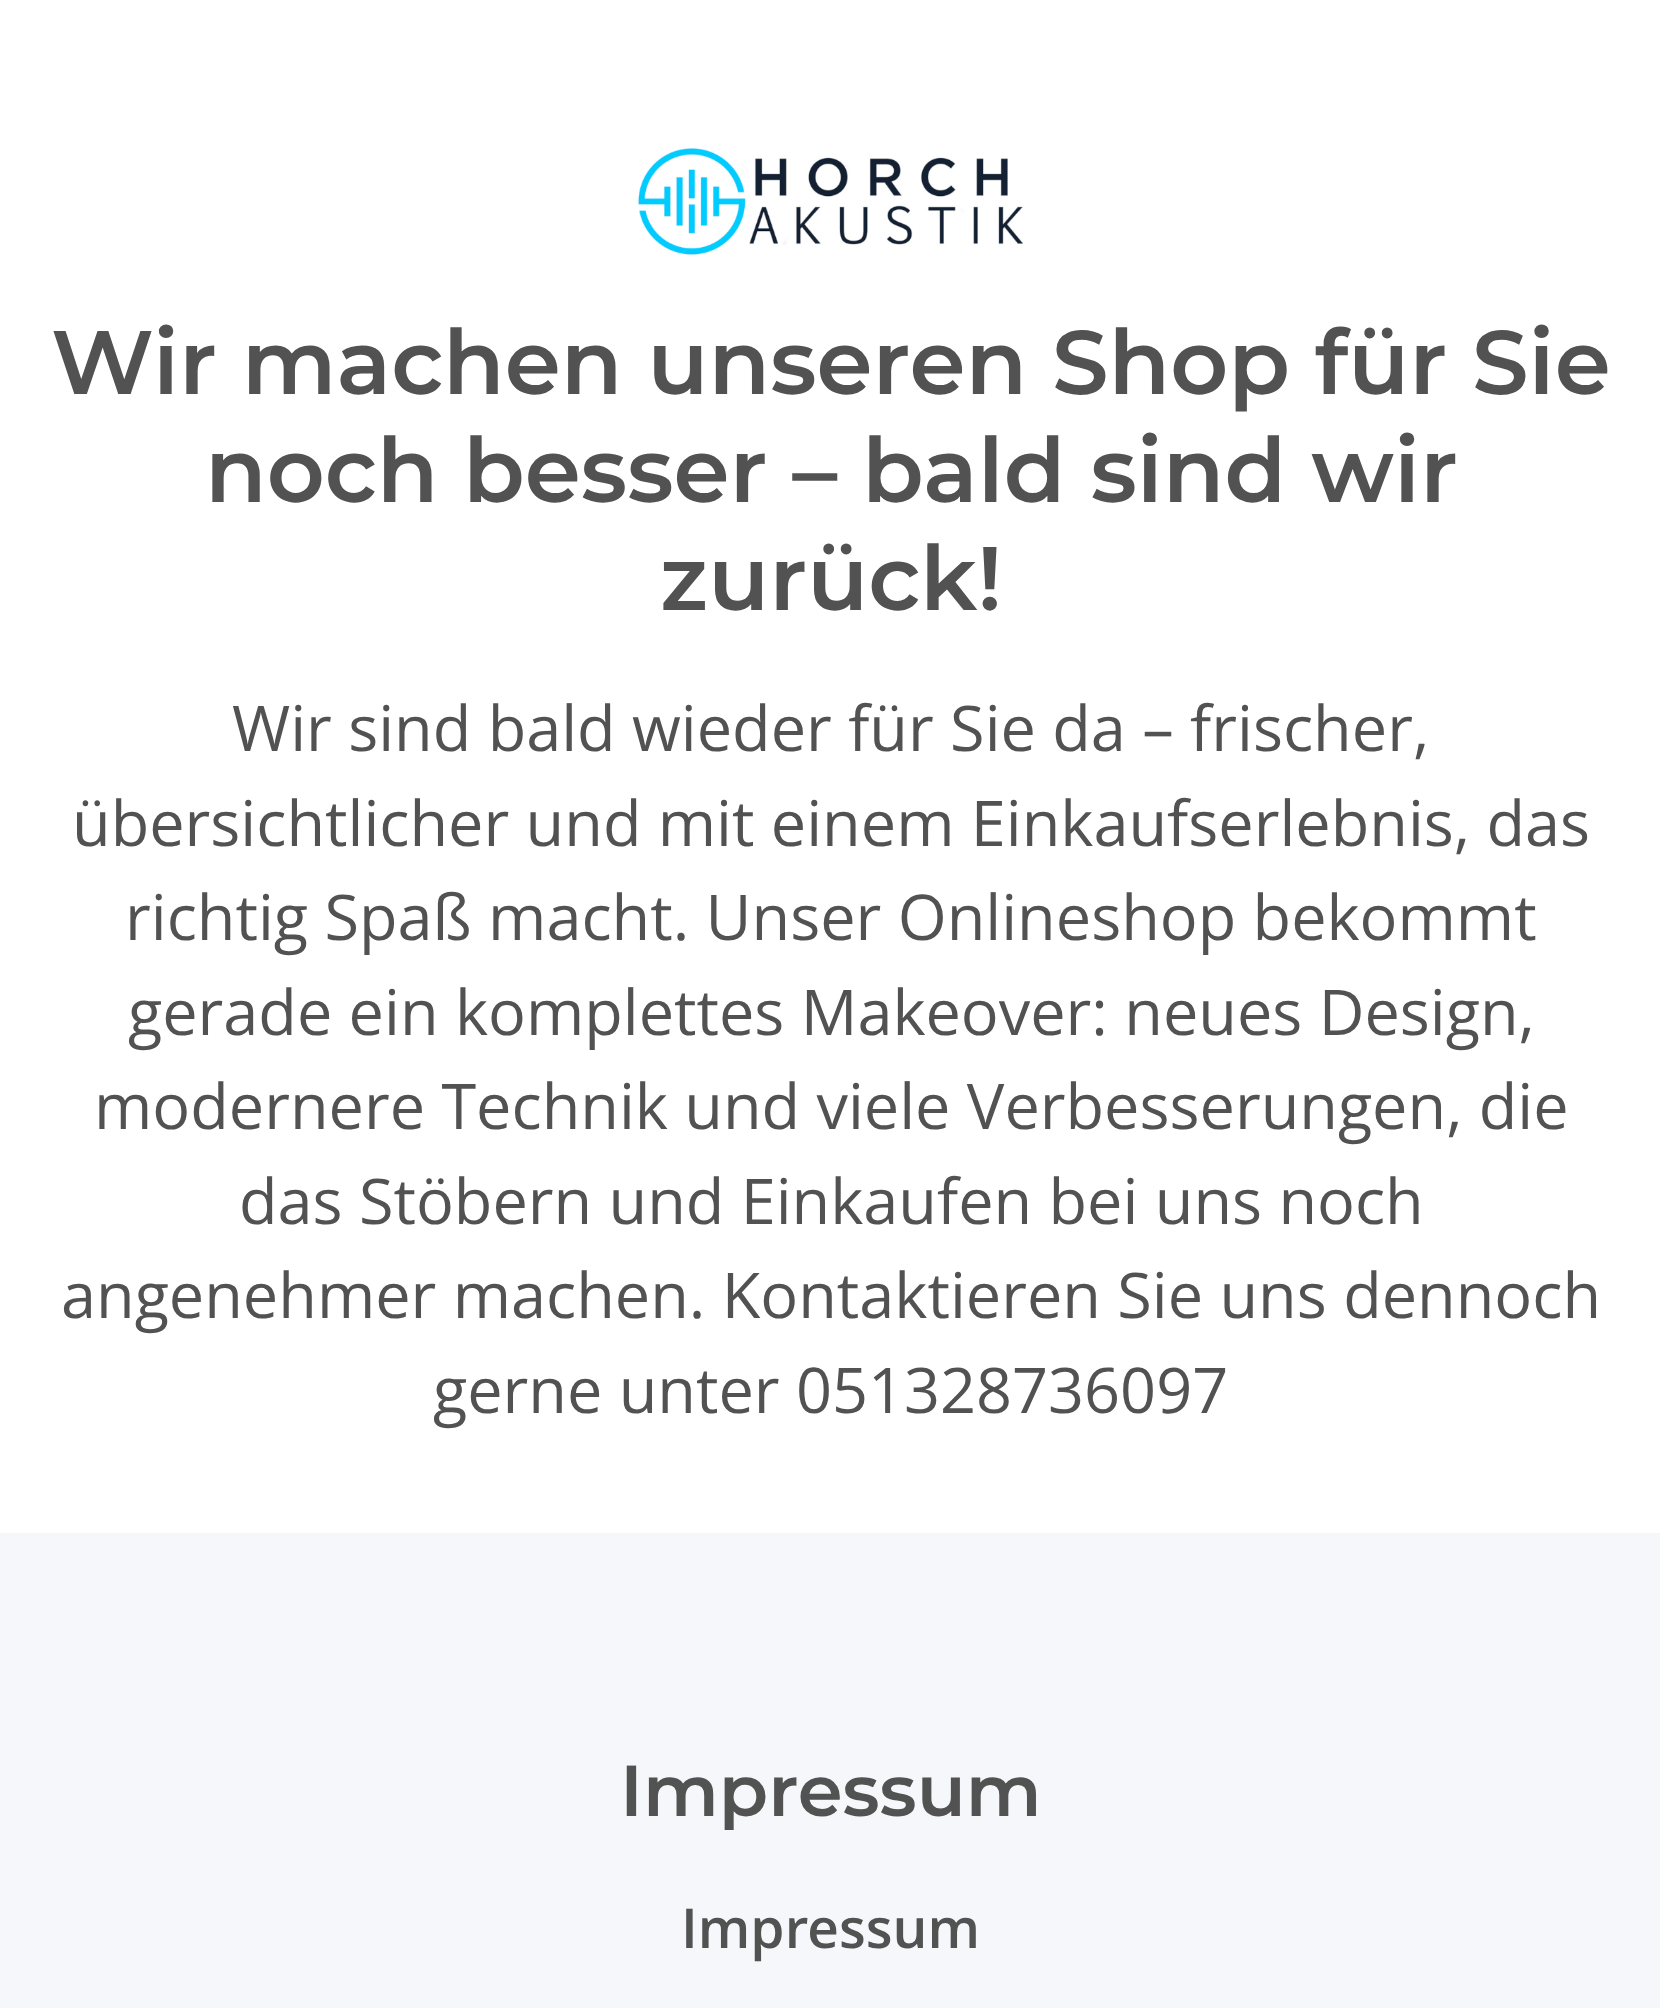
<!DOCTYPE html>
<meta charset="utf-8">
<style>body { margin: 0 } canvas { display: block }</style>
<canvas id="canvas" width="1660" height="2008"></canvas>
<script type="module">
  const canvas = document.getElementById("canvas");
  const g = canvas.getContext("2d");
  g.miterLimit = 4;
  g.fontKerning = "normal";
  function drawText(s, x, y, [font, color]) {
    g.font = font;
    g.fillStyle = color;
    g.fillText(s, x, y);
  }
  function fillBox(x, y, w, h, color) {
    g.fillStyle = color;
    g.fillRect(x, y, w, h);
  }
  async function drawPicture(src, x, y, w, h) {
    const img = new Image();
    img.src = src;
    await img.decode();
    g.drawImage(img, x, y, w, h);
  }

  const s1 = ["600 90px Montserrat", "#525252"];
  const s2 = ["63px Open Sans", "#525252"];
  const s3 = ["600 72px Montserrat", "#525252"];
  const s4 = ["600 55px Open Sans", "#525252"];

  fillBox(0, 0, 1660, 2008, "#FFFFFF");
  await drawPicture("pic1.png", 638, 148, 386, 107);
  drawText("Wir machen unseren Shop für Sie", 51, 394, s1);
  drawText("noch besser – bald sind wir", 205, 502, s1);
  drawText("zurück!", 660, 610, s1);
  drawText("Wir sind bald wieder für Sie da – frischer,", 232, 751, s2);
  drawText("übersichtlicher und mit einem Einkaufserlebnis, das", 72, 846, s2);
  drawText("richtig Spaß macht. Unser Onlineshop bekommt", 125, 940, s2);
  drawText("gerade ein komplettes Makeover: neues Design,", 128, 1035, s2);
  drawText("modernere Technik und viele Verbesserungen, die", 94, 1129, s2);
  drawText("das Stöbern und Einkaufen bei uns noch", 239, 1224, s2);
  drawText("angenehmer machen. Kontaktieren Sie uns dennoch", 61, 1318, s2);
  drawText("gerne unter 051328736097", 433, 1413, s2);
  fillBox(0, 1533, 1660, 475, "#F5F7FA");
  drawText("Impressum", 620, 1816, s3);
  drawText("Impressum", 681, 1948, s4);
</script>
